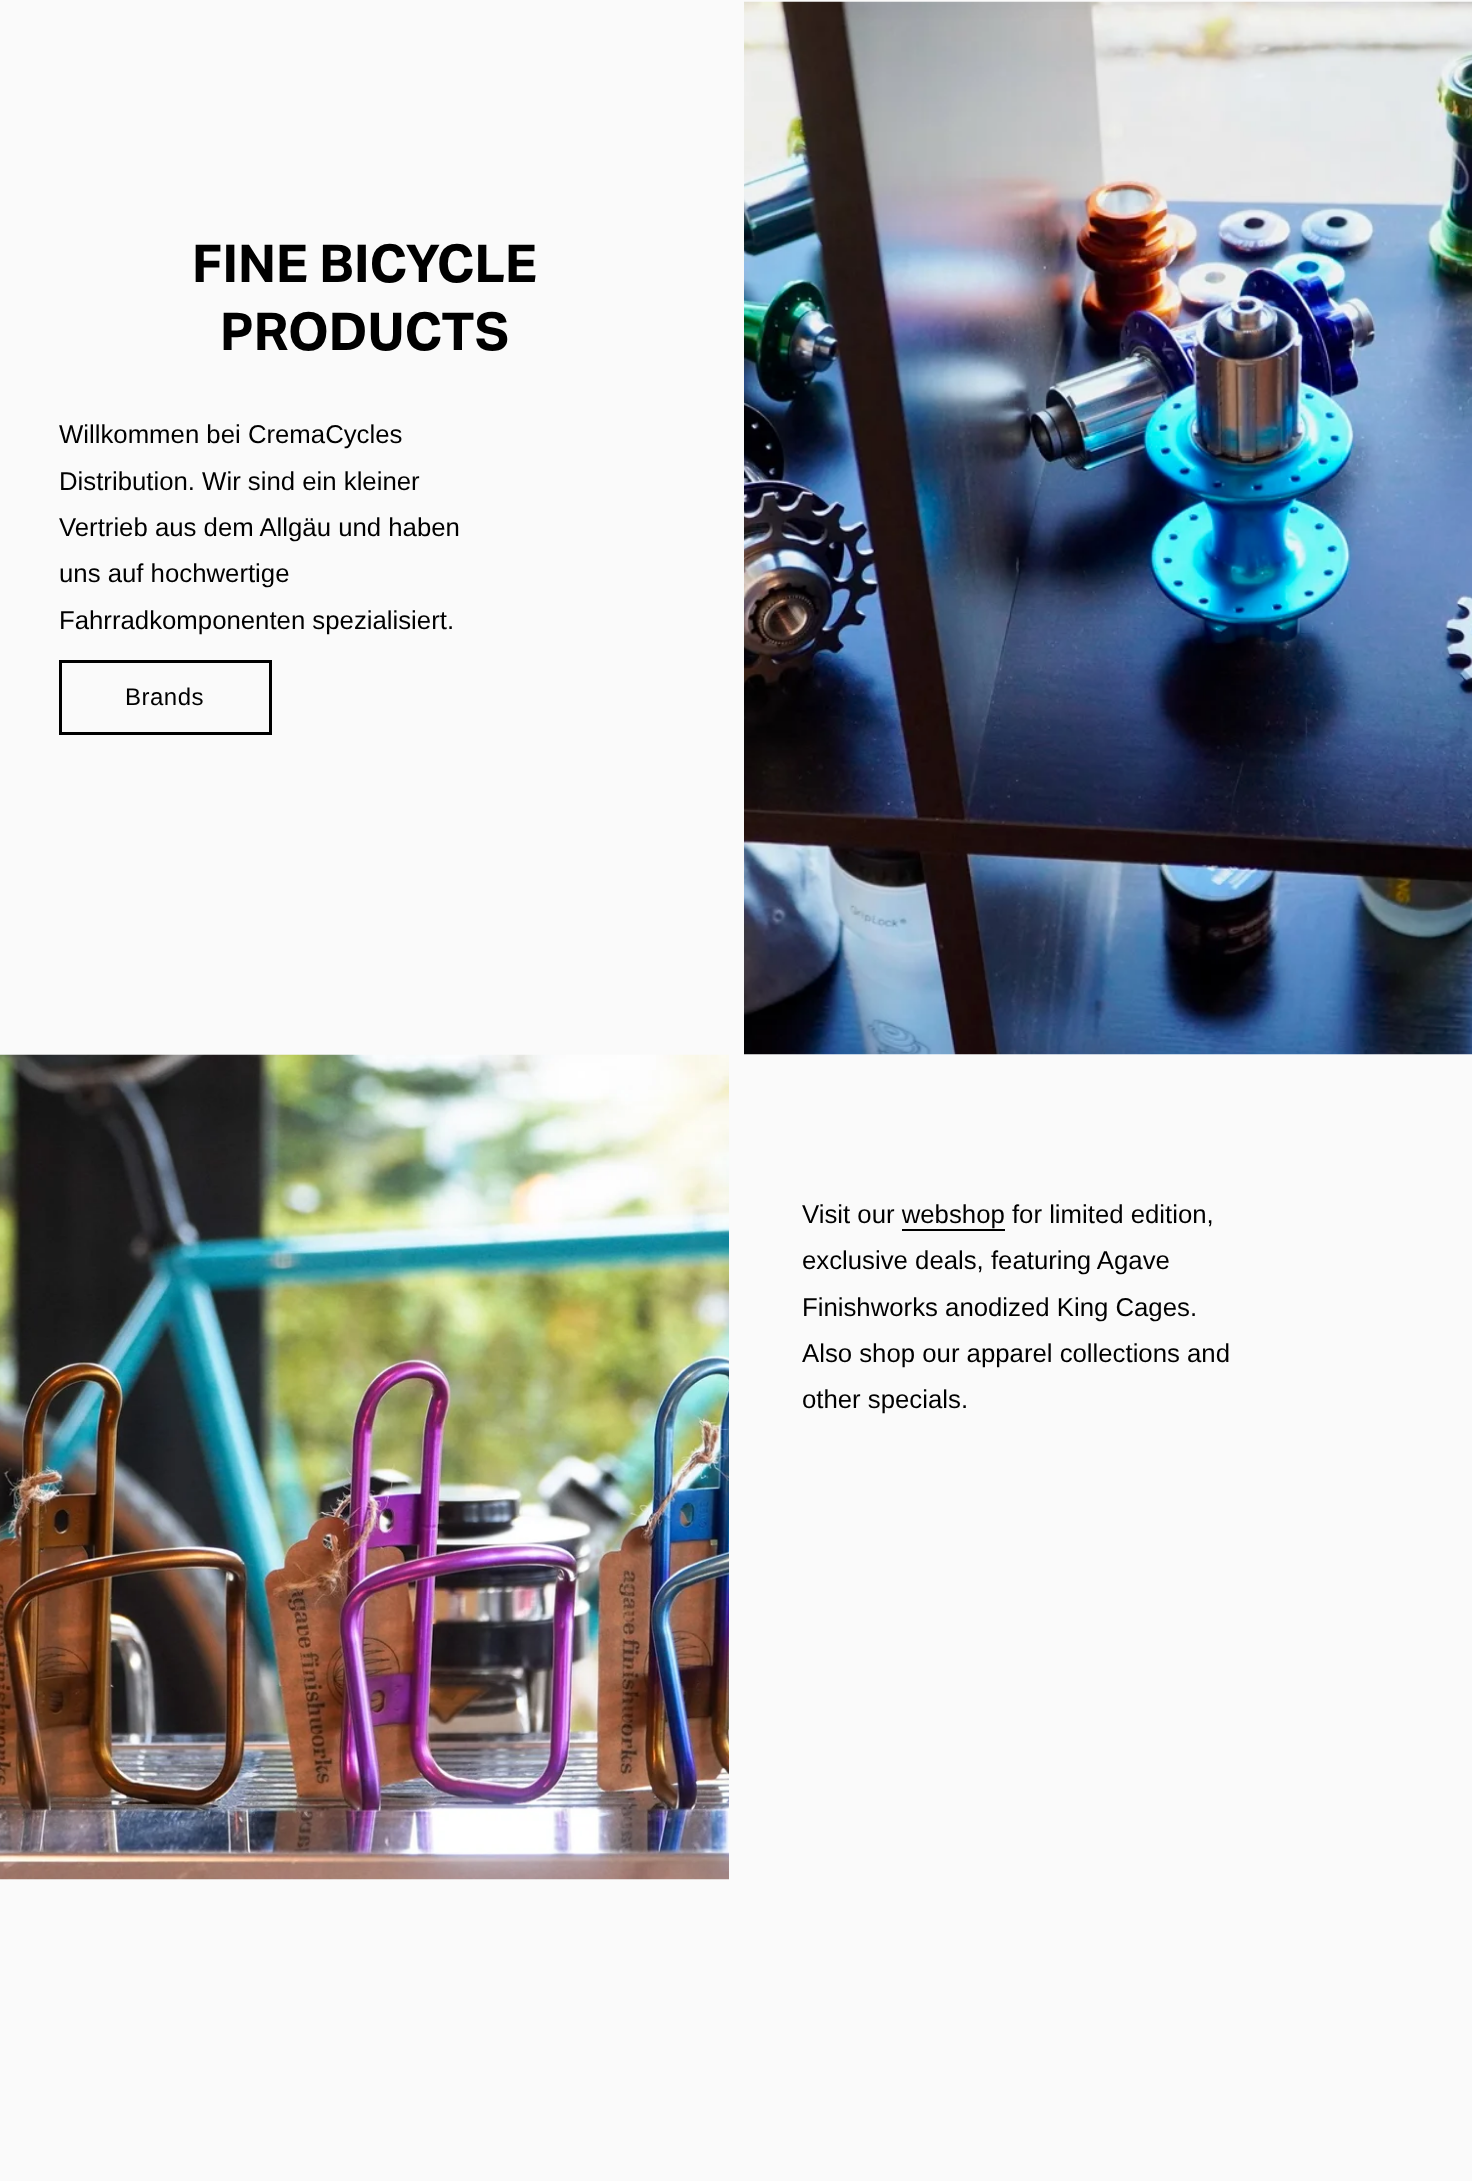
<!DOCTYPE html>
<meta charset="utf-8">
<style>body { margin: 0 } canvas { display: block }</style>
<canvas id="canvas" width="1472" height="2181"></canvas>
<script type="module">
  const canvas = document.getElementById("canvas");
  const g = canvas.getContext("2d");
  g.miterLimit = 4;
  g.fontKerning = "normal";
  function drawText(s, x, y, [font, color]) {
    g.font = font;
    g.fillStyle = color;
    g.fillText(s, x, y);
  }
  function fillBox(x, y, w, h, color) {
    g.fillStyle = color;
    g.fillRect(x, y, w, h);
  }
  async function drawPicture(src, x, y, w, h) {
    const img = new Image();
    img.src = src;
    await img.decode();
    g.drawImage(img, x, y, w, h);
  }

  const s1 = ["bold 52.25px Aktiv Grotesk", "#000000"];
  const s2 = ["25.75px Liberation Sans", "#000000"];
  const s3 = ["24px Liberation Sans", "#000000"];

  fillBox(0, 0, 1472, 2181, "#FAFAFA");
  drawText("FINE BICYCLE", 192, 282, s1);
  drawText("PRODUCTS", 220, 350, s1);
  await drawPicture("pic1.png", 744, 1, 728, 1054);
  drawText("Willkommen bei CremaCycles", 59, 443, s2);
  drawText("Distribution. Wir sind ein kleiner", 59, 490, s2);
  drawText("Vertrieb aus dem Allgäu und haben", 59, 536, s2);
  drawText("uns auf hochwertige", 59, 582, s2);
  drawText("Fahrradkomponenten spezialisiert.", 59, 629, s2);
  g.strokeStyle = "#000000";
  g.lineWidth = 3;
  g.strokeRect(60.5, 661.5, 210, 72);
  g.letterSpacing = "0.5px";
  drawText("Brands", 125, 705, s3);
  await drawPicture("pic2.png", 0, 1054, 729, 826);
  g.letterSpacing = "0px";
  drawText("Visit our webshop for limited edition,", 802, 1223, s2);
  fillBox(902, 1229, 103, 2, "#000000");
  drawText("exclusive deals, featuring Agave", 802, 1269, s2);
  drawText("Finishworks anodized King Cages.", 802, 1316, s2);
  drawText("Also shop our apparel collections and", 802, 1362, s2);
  drawText("other specials.", 802, 1408, s2);
</script>
